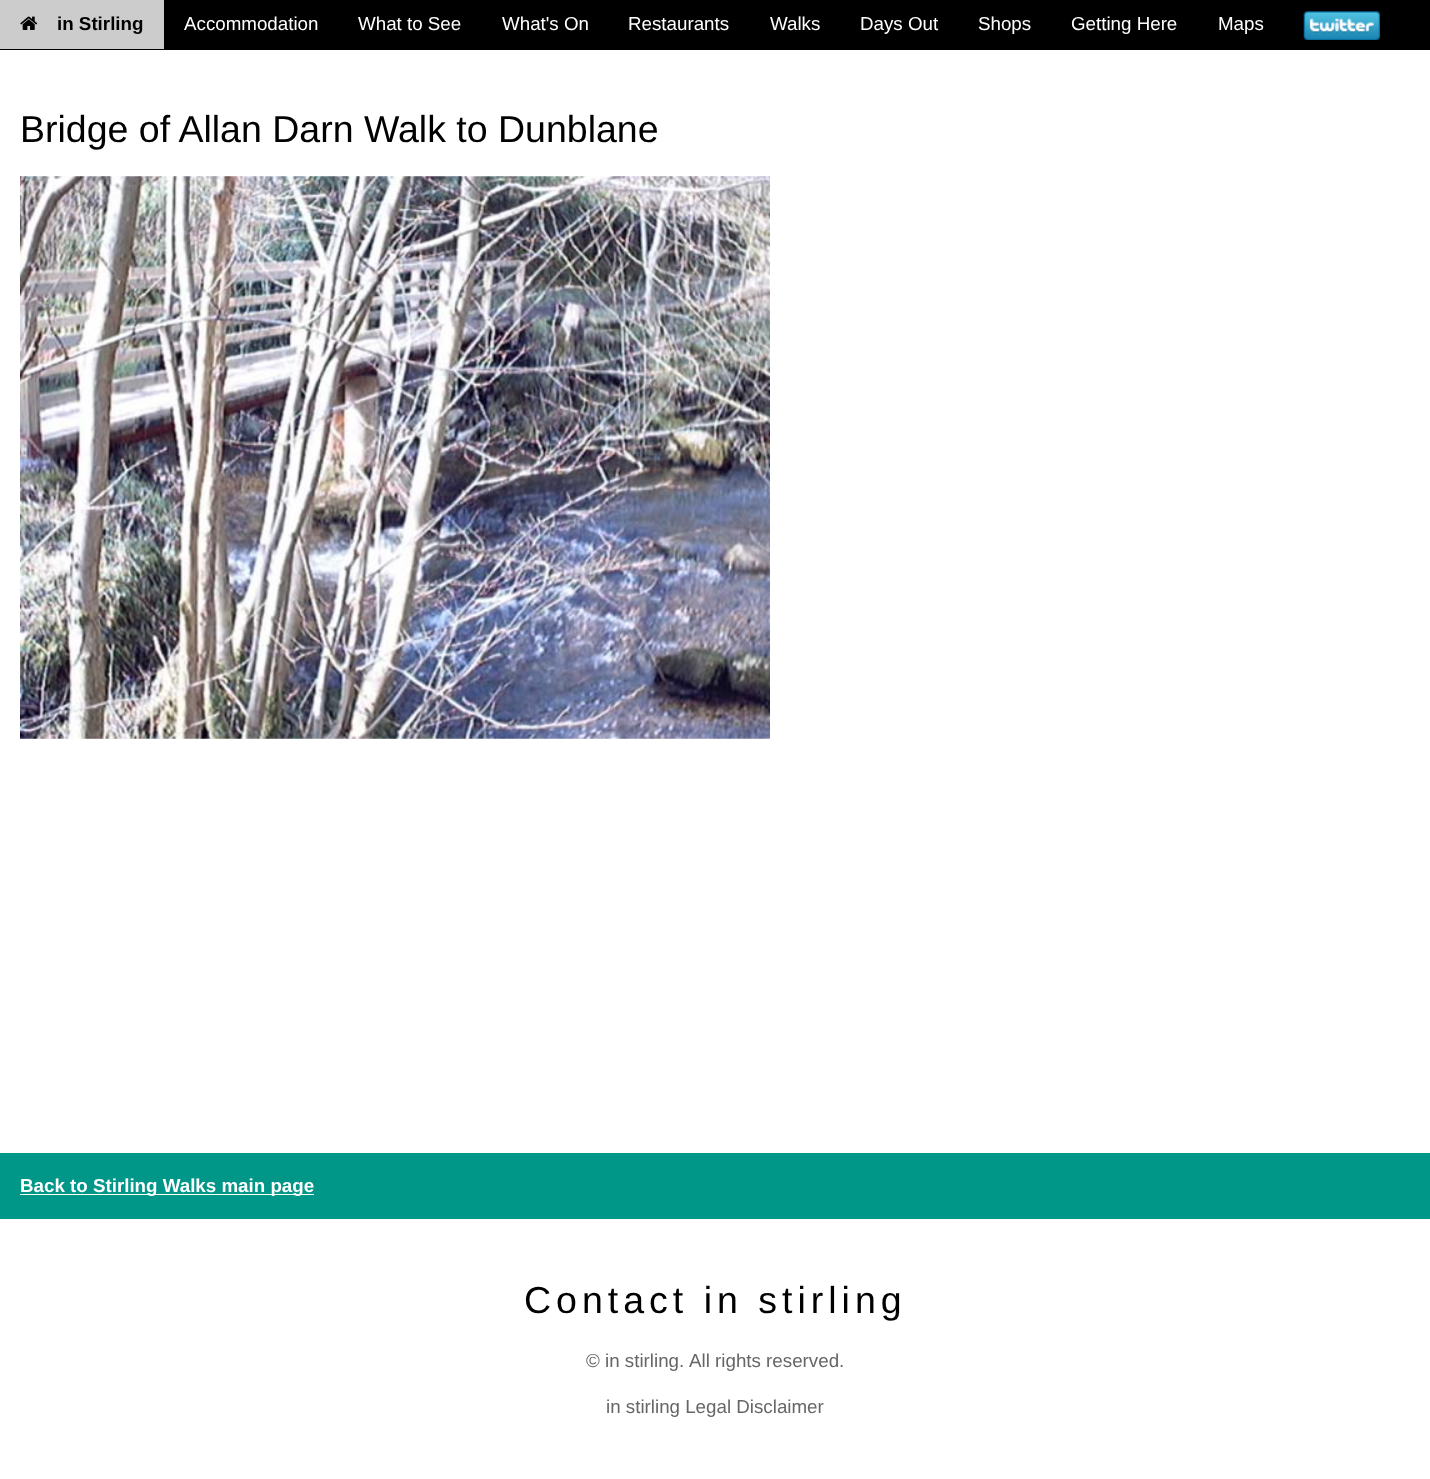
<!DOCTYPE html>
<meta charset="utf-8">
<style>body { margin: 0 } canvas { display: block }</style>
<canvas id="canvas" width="1430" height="1479"></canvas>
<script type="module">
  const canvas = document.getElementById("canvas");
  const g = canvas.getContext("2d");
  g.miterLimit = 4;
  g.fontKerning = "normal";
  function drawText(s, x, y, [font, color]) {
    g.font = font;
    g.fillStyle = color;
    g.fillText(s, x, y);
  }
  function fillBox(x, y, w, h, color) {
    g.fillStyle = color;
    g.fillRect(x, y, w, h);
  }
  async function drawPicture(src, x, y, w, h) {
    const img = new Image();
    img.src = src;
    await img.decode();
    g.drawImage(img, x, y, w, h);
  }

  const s1 = ["bold 18.75px Liberation Sans", "#000000"];
  const s2 = ["18.75px Liberation Sans", "#FFFFFF"];
  const s3 = ["37.5px Liberation Sans", "#000000"];
  const s4 = ["bold 18.75px Liberation Sans", "#FFFFFF"];
  const s5 = ["18.75px Liberation Sans", "#666666"];

  fillBox(0, 0, 1430, 1479, "#FFFFFF");
  fillBox(0, 0, 1430, 50, "#000000");
  fillBox(0, 0, 164, 49, "#CCCCCC");
  await drawPicture("pic1.png", 20, 16, 18, 14);
  drawText("in Stirling", 57, 30, s1);
  drawText("Accommodation", 184, 30, s2);
  drawText("What to See", 358, 30, s2);
  drawText("What's On", 502, 30, s2);
  drawText("Restaurants", 628, 30, s2);
  drawText("Walks", 770, 30, s2);
  drawText("Days Out", 860, 30, s2);
  drawText("Shops", 978, 30, s2);
  drawText("Getting Here", 1071, 30, s2);
  drawText("Maps", 1218, 30, s2);
  await drawPicture("pic2.png", 1303, 11, 77, 29);
  drawText("Bridge of Allan Darn Walk to Dunblane", 20, 142, s3);
  await drawPicture("pic3.png", 20, 176, 750, 563);
  fillBox(0, 1153, 1430, 66, "#009688");
  fillBox(20, 1194, 294, 1, "#FFFFFF");
  drawText("Back to Stirling Walks main page", 20, 1192, s4);
  g.letterSpacing = "5px";
  drawText("Contact in stirling", 524, 1313, s3);
  g.letterSpacing = "0px";
  drawText("© in stirling.", 586, 1367, s5);
  drawText("All rights reserved.", 689, 1367, s5);
  drawText("in stirling Legal Disclaimer", 606, 1413, s5);
</script>
